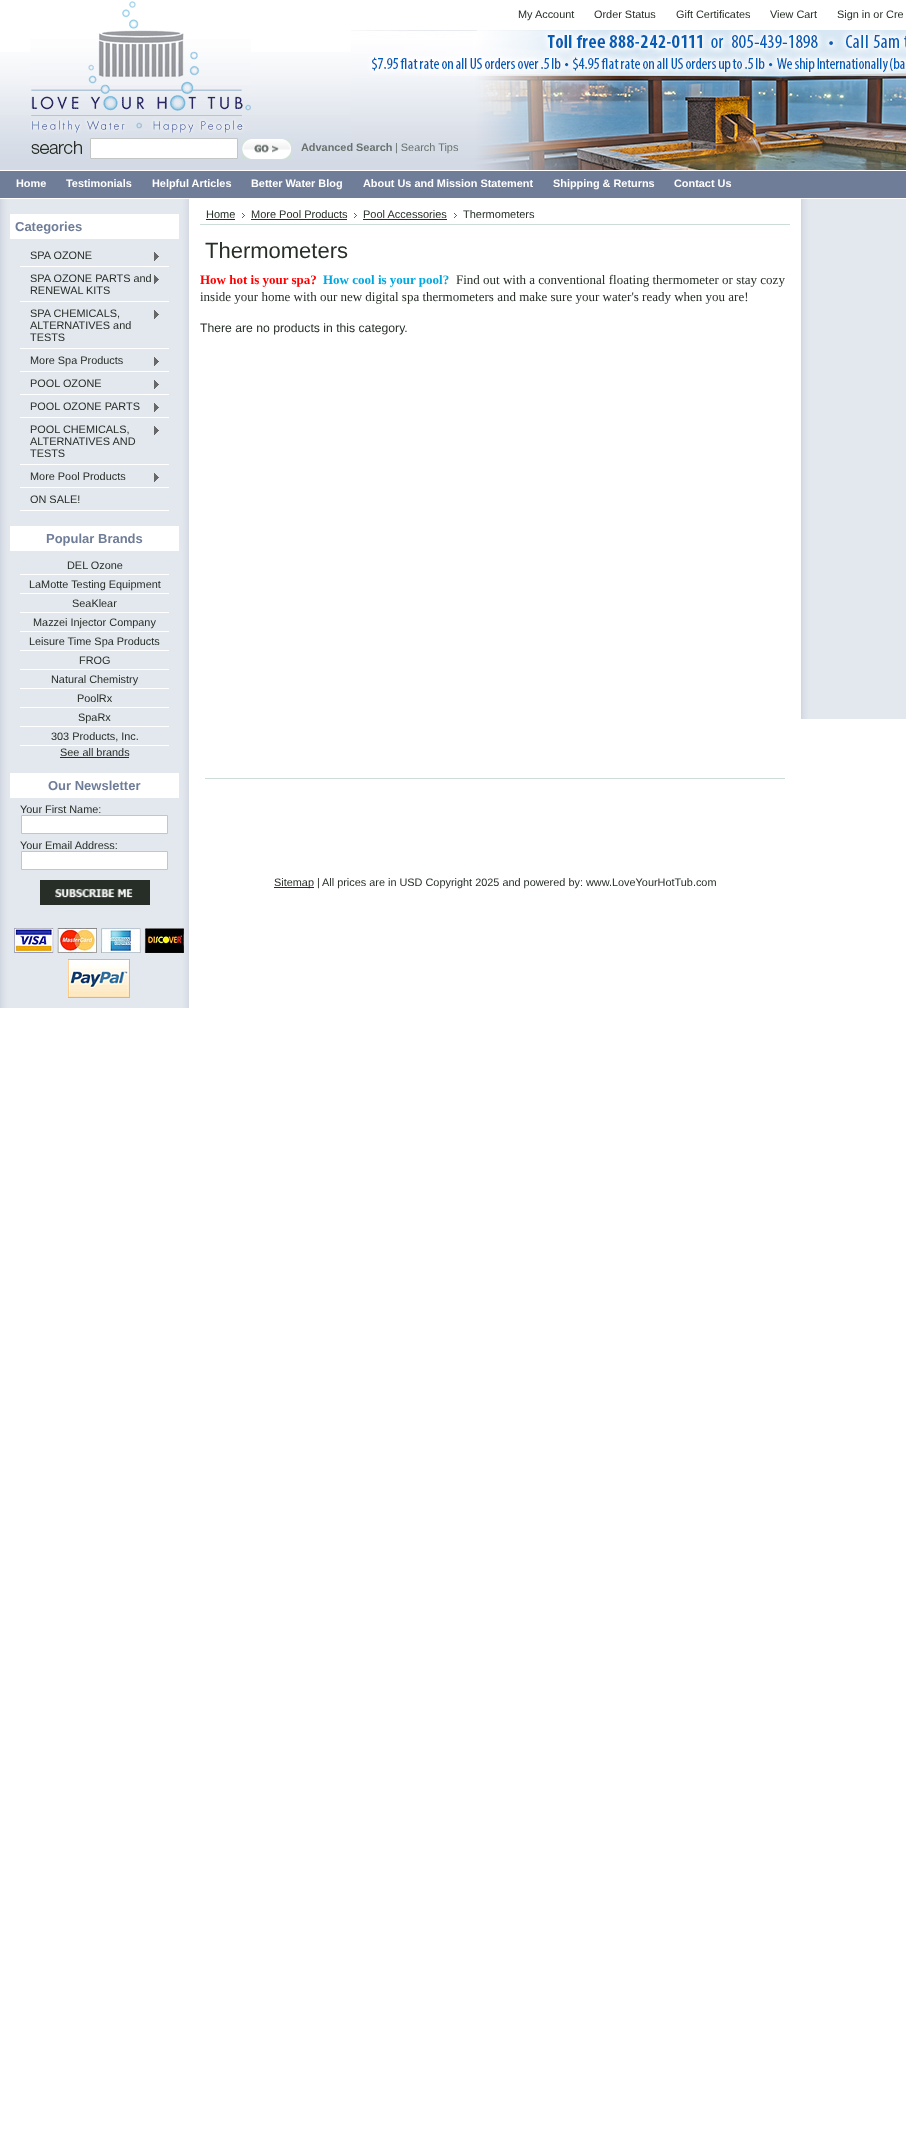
<!DOCTYPE html>
<meta charset="utf-8">
<style>body { margin: 0 } canvas { display: block }</style>
<canvas id="canvas" width="906" height="2143"></canvas>
<script type="module">
  const canvas = document.getElementById("canvas");
  const g = canvas.getContext("2d");
  g.miterLimit = 4;
  g.fontKerning = "normal";
  function drawText(s, x, y, [font, color]) {
    g.font = font;
    g.fillStyle = color;
    g.fillText(s, x, y);
  }
  function fillBox(x, y, w, h, color) {
    g.fillStyle = color;
    g.fillRect(x, y, w, h);
  }
  async function drawPicture(src, x, y, w, h) {
    const img = new Image();
    img.src = src;
    await img.decode();
    g.drawImage(img, x, y, w, h);
  }

  const s1 = ["10.9px Liberation Sans", "#262E27"];
  const s2 = ["bold 10.9px Liberation Sans", "#69706D"];
  const s3 = ["10.9px Liberation Sans", "#69706D"];
  const s4 = ["bold 10.9px Liberation Sans", "#FFFFFF"];
  const s5 = ["bold 13px Liberation Sans", "#6F7D98"];
  const s6 = ["11px Liberation Sans", "#262E27"];
  const s7 = ["22px Liberation Sans", "#262E27"];
  const s8 = ["bold 13px Liberation Serif", "#FF0000"];
  const s9 = ["bold 13px Liberation Serif", "#00A8E0"];
  const s10 = ["13px Liberation Serif", "#262E27"];
  const s11 = ["12.2px Liberation Sans", "#262E27"];

  fillBox(0, 0, 906, 2143, "#FFFFFF");
  await drawPicture("pic1.png", 0, 52, 906, 146);
  await drawPicture("pic2.png", 122, 1, 17, 28);
  drawText("My Account", 518, 18, s1);
  drawText("Order Status", 594, 18, s1);
  drawText("Gift Certificates", 676, 18, s1);
  drawText("View Cart", 770, 18, s1);
  drawText("Sign in or Cre", 837, 18, s1);
  await drawPicture("pic3.png", 351, 30, 555, 140);
  await drawPicture("pic4.png", 30, 30, 221, 103);
  await drawPicture("pic5.png", 31, 141, 51, 13);
  g.fillStyle = "#FFFFFF";
  g.beginPath();
  g.rect(90.5, 138.5, 147, 20);
  g.fill();
  g.strokeStyle = "#C3C6C4";
  g.stroke();
  await drawPicture("pic6.png", 242, 139, 49, 21);
  drawText("Advanced Search", 301, 151, s2);
  drawText("| Search Tips", 395, 151, s3);
  drawText("Home", 16, 187, s4);
  drawText("Testimonials", 66, 187, s4);
  drawText("Helpful Articles", 152, 187, s4);
  drawText("Better Water Blog", 251, 187, s4);
  drawText("About Us and Mission Statement", 363, 187, s4);
  drawText("Shipping & Returns", 553, 187, s4);
  drawText("Contact Us", 674, 187, s4);
  await drawPicture("pic7.png", 0, 199, 189, 809);
  fillBox(10, 214, 169, 25, "#FFFFFF");
  drawText("Categories", 15, 231, s5);
  fillBox(20, 266, 149, 1, "#FFFFFF");
  drawText("SPA OZONE", 30, 259, s1);
  await drawPicture("pic8.png", 154, 252, 5, 9);
  fillBox(20, 301, 149, 1, "#FFFFFF");
  drawText("SPA OZONE PARTS and", 30, 282, s1);
  await drawPicture("pic8.png", 154, 275, 5, 9);
  drawText("RENEWAL KITS", 30, 294, s1);
  fillBox(20, 348, 149, 1, "#FFFFFF");
  drawText("SPA CHEMICALS,", 30, 317, s1);
  await drawPicture("pic8.png", 154, 310, 5, 9);
  drawText("ALTERNATIVES and", 30, 329, s1);
  drawText("TESTS", 30, 341, s1);
  fillBox(20, 371, 149, 1, "#FFFFFF");
  drawText("More Spa Products", 30, 364, s1);
  await drawPicture("pic8.png", 154, 357, 5, 9);
  fillBox(20, 394, 149, 1, "#FFFFFF");
  drawText("POOL OZONE", 30, 387, s1);
  await drawPicture("pic8.png", 154, 380, 5, 9);
  fillBox(20, 417, 149, 1, "#FFFFFF");
  drawText("POOL OZONE PARTS", 30, 410, s1);
  await drawPicture("pic8.png", 154, 403, 5, 9);
  fillBox(20, 464, 149, 1, "#FFFFFF");
  drawText("POOL CHEMICALS,", 30, 433, s1);
  await drawPicture("pic8.png", 154, 426, 5, 9);
  drawText("ALTERNATIVES AND", 30, 445, s1);
  drawText("TESTS", 30, 457, s1);
  fillBox(20, 487, 149, 1, "#FFFFFF");
  drawText("More Pool Products", 30, 480, s1);
  await drawPicture("pic8.png", 154, 473, 5, 9);
  fillBox(20, 510, 149, 1, "#FFFFFF");
  drawText("ON SALE!", 30, 503, s1);
  fillBox(10, 526, 169, 25, "#FFFFFF");
  drawText("Popular Brands", 46, 543, s5);
  fillBox(20, 574, 149, 1, "#FFFFFF");
  drawText("DEL Ozone", 67, 569, s1);
  fillBox(20, 593, 149, 1, "#FFFFFF");
  drawText("LaMotte Testing Equipment", 29, 588, s1);
  fillBox(20, 612, 149, 1, "#FFFFFF");
  drawText("SeaKlear", 72, 607, s1);
  fillBox(20, 631, 149, 1, "#FFFFFF");
  drawText("Mazzei Injector Company", 33, 626, s1);
  fillBox(20, 650, 149, 1, "#FFFFFF");
  drawText("Leisure Time Spa Products", 29, 645, s1);
  fillBox(20, 669, 149, 1, "#FFFFFF");
  drawText("FROG", 79, 664, s1);
  fillBox(20, 688, 149, 1, "#FFFFFF");
  drawText("Natural Chemistry", 51, 683, s1);
  fillBox(20, 707, 149, 1, "#FFFFFF");
  drawText("PoolRx", 77, 702, s1);
  fillBox(20, 726, 149, 1, "#FFFFFF");
  drawText("SpaRx", 78, 721, s1);
  fillBox(20, 745, 149, 1, "#FFFFFF");
  drawText("303 Products, Inc.", 51, 740, s1);
  drawText("See all brands", 60, 756, s1);
  fillBox(60, 757, 69, 1, "#262E27");
  fillBox(10, 773, 169, 25, "#FFFFFF");
  drawText("Our Newsletter", 48, 790, s5);
  drawText("Your First Name:", 20, 813, s1);
  g.fillStyle = "#FFFFFF";
  g.beginPath();
  g.rect(21.5, 815.5, 146, 18);
  g.fill();
  g.stroke();
  drawText("Your Email Address:", 20, 849, s1);
  g.fillStyle = "#FFFFFF";
  g.beginPath();
  g.rect(21.5, 851.5, 146, 18);
  g.fill();
  g.stroke();
  await drawPicture("pic9.png", 40, 880, 110, 25);
  await drawPicture("pic10.png", 14, 928, 170, 70);
  fillBox(200, 224, 590, 1, "#CCDCD6");
  drawText("Home", 206, 218, s6);
  fillBox(206, 219, 29, 1, "#262E27");
  await drawPicture("pic11.png", 242, 213, 3, 5);
  drawText("More Pool Products", 251, 218, s6);
  fillBox(251, 219, 96, 1, "#262E27");
  await drawPicture("pic11.png", 354, 213, 3, 5);
  drawText("Pool Accessories", 363, 218, s6);
  fillBox(363, 219, 84, 1, "#262E27");
  await drawPicture("pic11.png", 454, 213, 3, 5);
  drawText("Thermometers", 463, 218, s6);
  drawText("Thermometers", 205, 258, s7);
  drawText("How hot is your spa?", 200, 284, s8);
  drawText("How cool is your pool?", 323, 284, s9);
  drawText("Find out with a conventional floating thermometer or stay cozy", 456, 284, s10);
  drawText("inside your home with our new digital spa thermometers and make sure your water's ready when you are!", 200, 301, s10);
  drawText("There are no products in this category.", 200, 332, s11);
  await drawPicture("pic12.png", 801, 199, 105, 520);
  fillBox(205, 778, 580, 1, "#CCDCD6");
  fillBox(274, 887, 40, 1, "#262E27");
  drawText("Sitemap", 274, 886, s1);
  drawText("|", 317, 886, s1);
  drawText("All prices are in USD Copyright 2025 and powered by: www.LoveYourHotTub.com", 322, 886, s1);
</script>
